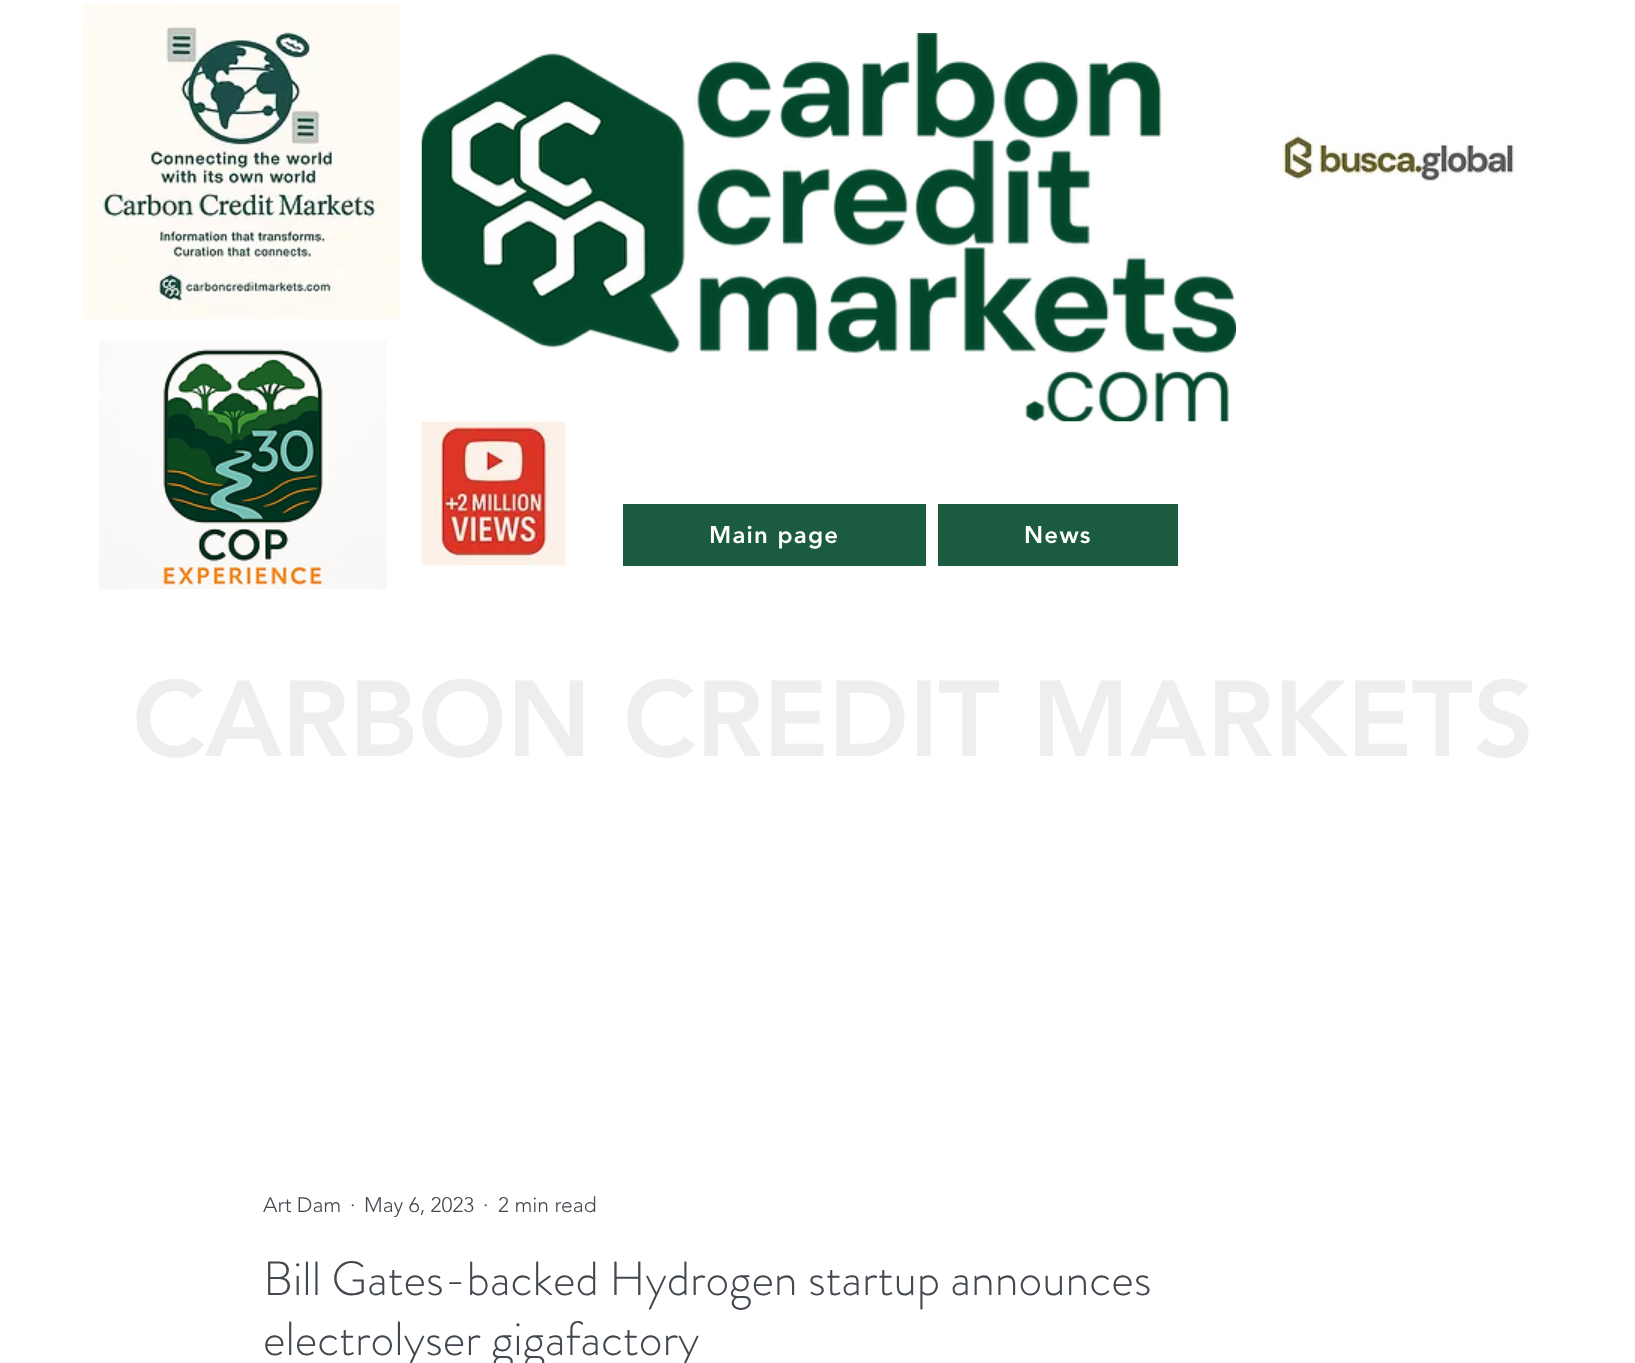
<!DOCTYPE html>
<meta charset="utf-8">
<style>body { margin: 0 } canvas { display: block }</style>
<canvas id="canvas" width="1635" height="1363"></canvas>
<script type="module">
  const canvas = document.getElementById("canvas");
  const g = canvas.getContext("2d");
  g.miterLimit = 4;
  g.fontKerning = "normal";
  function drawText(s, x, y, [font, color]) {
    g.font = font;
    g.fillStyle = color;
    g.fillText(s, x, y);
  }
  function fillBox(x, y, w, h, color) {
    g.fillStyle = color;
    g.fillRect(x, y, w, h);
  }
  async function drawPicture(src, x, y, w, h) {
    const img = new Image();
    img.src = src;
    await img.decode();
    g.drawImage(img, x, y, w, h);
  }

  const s1 = ["900 24px 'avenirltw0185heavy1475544'", "#FFFFFF"];
  const s2 = ["900 106.5px 'avenirltw0185heavy1475544'", "#EEEEEE"];
  const s3 = ["300 21px 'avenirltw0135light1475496'", "#42484F"];
  const s4 = ["300 48px 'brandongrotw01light'", "#42484F"];

  fillBox(0, 0, 1635, 1363, "#FFFFFF");
  await drawPicture("pic1.png", 83, 3, 317, 316);
  await drawPicture("pic2.png", 421, 33, 815, 389);
  await drawPicture("pic3.png", 1280, 128, 238, 53);
  await drawPicture("pic4.png", 99, 341, 288, 248);
  await drawPicture("pic5.png", 421, 421, 145, 145);
  fillBox(623, 504, 303, 62, "#1B5B3F");
  g.letterSpacing = "1.25px";
  drawText("Main page", 709, 543, s1);
  fillBox(938, 504, 240, 62, "#1B5B3F");
  drawText("News", 1024, 543, s1);
  g.letterSpacing = "0px";
  drawText("CARBON CREDIT MARKETS", 132, 756, s2);
  drawText("Art Dam", 263, 1212, s3);
  drawText("·", 350, 1212, s3);
  drawText("May 6, 2023", 364, 1212, s3);
  drawText("·", 483, 1212, s3);
  drawText("2 min read", 498, 1212, s3);
  drawText("Bill Gates-backed Hydrogen startup announces", 263, 1295, s4);
  drawText("electrolyser gigafactory", 263, 1355, s4);
</script>
